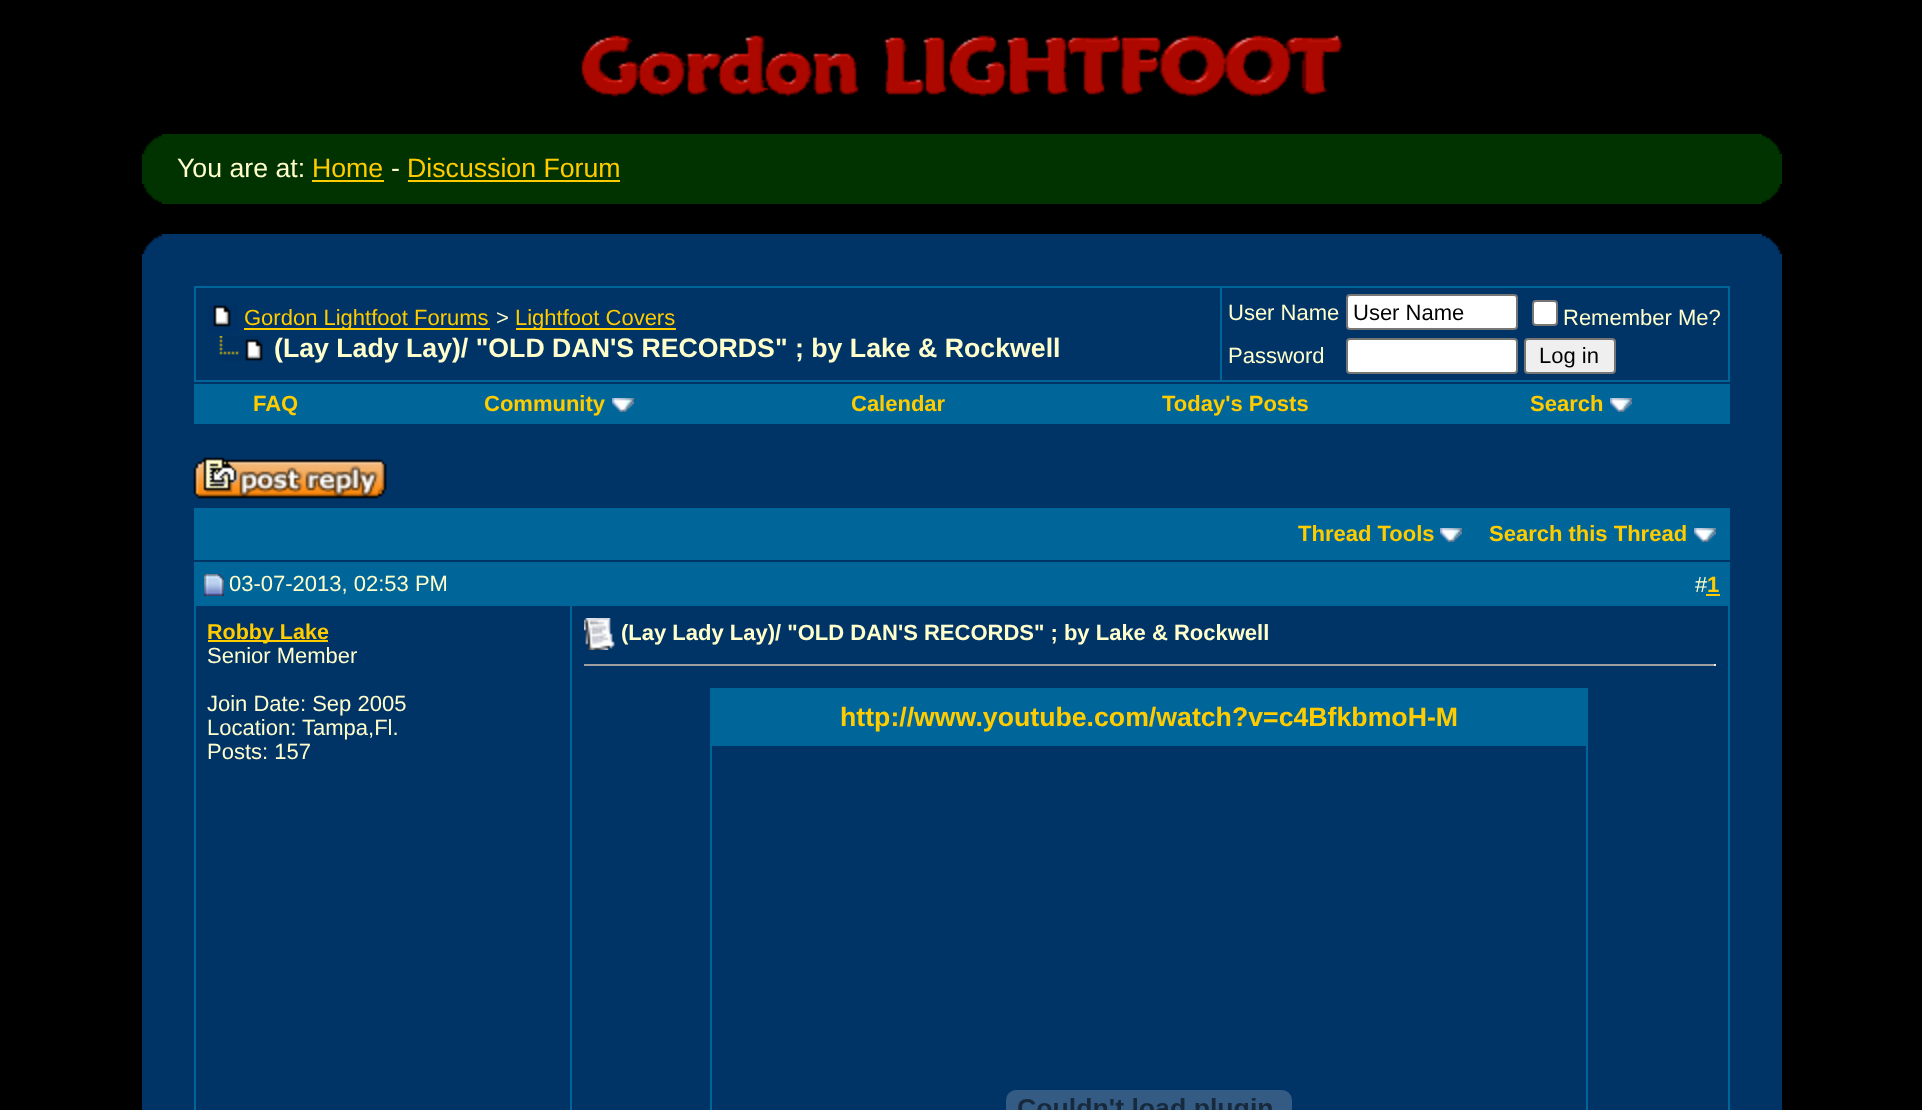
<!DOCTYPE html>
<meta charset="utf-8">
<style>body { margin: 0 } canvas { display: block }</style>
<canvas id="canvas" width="1922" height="1110"></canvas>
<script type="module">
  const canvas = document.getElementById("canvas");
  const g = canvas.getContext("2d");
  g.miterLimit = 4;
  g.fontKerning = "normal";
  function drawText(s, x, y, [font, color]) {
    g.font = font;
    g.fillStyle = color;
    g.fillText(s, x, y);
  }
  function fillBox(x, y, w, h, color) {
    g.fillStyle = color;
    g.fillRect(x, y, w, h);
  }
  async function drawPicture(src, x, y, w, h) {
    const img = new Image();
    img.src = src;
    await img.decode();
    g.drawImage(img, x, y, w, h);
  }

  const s1 = ["26.7px Liberation Sans", "#FFFFCC"];
  const s2 = ["26.7px Liberation Sans", "#FFCC00"];
  const s3 = ["22px Liberation Sans", "#FFCC00"];
  const s4 = ["22px Liberation Sans", "#FFFFCC"];
  const s5 = ["bold 26.7px Liberation Sans", "#FFFFCC"];
  const s6 = ["22px Liberation Sans", "#000000"];
  const s7 = ["bold 22px Liberation Sans", "#FFCC00"];
  const s8 = ["bold 21.5px Liberation Sans", "#FFCC00"];
  const s9 = ["bold 22px Liberation Sans", "#FFFFCC"];
  const s10 = ["bold 26.7px Liberation Sans", "#FFCC00"];

  fillBox(0, 0, 1922, 1110, "#000000");
  await drawPicture("pic1.png", 581, 35, 762, 62);
  fillBox(142, 134, 1640, 70, "#003300");
  await drawPicture("pic2.png", 142, 134, 20, 20);
  await drawPicture("pic3.png", 1762, 134, 20, 20);
  drawText("You are at:", 177, 177, s1);
  drawText("Home", 312, 177, s2);
  fillBox(312, 180, 72, 2, "#FFCC00");
  drawText("-", 391, 177, s1);
  drawText("Discussion Forum", 407, 177, s2);
  fillBox(408, 180, 212, 2, "#FFCC00");
  await drawPicture("pic4.png", 142, 184, 20, 20);
  await drawPicture("pic5.png", 1762, 184, 20, 20);
  fillBox(143, 234, 1638, 20, "#003366");
  await drawPicture("pic6.png", 142, 234, 20, 20);
  await drawPicture("pic7.png", 1762, 234, 20, 20);
  fillBox(142, 254, 1640, 856, "#003366");
  fillBox(194, 286, 1536, 96, "#006699");
  fillBox(196, 288, 1024, 92, "#003366");
  await drawPicture("pic8.png", 208, 305, 30, 27);
  fillBox(244, 328, 246, 2, "#FFCC00");
  drawText("Gordon Lightfoot Forums", 244, 325, s3);
  drawText(">", 496, 325, s4);
  fillBox(516, 328, 160, 2, "#FFCC00");
  drawText("Lightfoot Covers", 515, 325, s3);
  await drawPicture("pic9.png", 219, 336, 44, 25);
  drawText("(Lay Lady Lay)/ \"OLD DAN'S RECORDS\" ; by Lake & Rockwell", 274, 357, s5);
  fillBox(1222, 288, 506, 92, "#003366");
  drawText("User Name", 1228, 320, s4);
  g.fillStyle = "#FFFFFF";
  g.beginPath();
  g.roundRect(1347, 295, 170, 34, 3);
  g.fill();
  g.strokeStyle = "#767676";
  g.lineWidth = 2;
  g.stroke();
  drawText("User Name", 1353, 320, s6);
  g.fillStyle = "#FFFFFF";
  g.beginPath();
  g.roundRect(1533, 301, 24, 24, 3);
  g.fill();
  g.stroke();
  drawText("Remember Me?", 1563, 325, s4);
  drawText("Password", 1228, 363, s4);
  g.fillStyle = "#FFFFFF";
  g.beginPath();
  g.roundRect(1347, 339, 170, 34, 3);
  g.fill();
  g.stroke();
  g.fillStyle = "#EFEFEF";
  g.beginPath();
  g.roundRect(1525, 339, 90, 34, 3);
  g.fill();
  g.stroke();
  drawText("Log in", 1539, 363, s6);
  fillBox(194, 384, 1536, 40, "#006699");
  drawText("FAQ", 253, 411, s7);
  drawText("Community", 484, 411, s7);
  await drawPicture("pic10.png", 612, 398, 22, 14);
  drawText("Calendar", 851, 411, s7);
  drawText("Today's Posts", 1162, 411, s7);
  drawText("Search", 1530, 411, s7);
  await drawPicture("pic10.png", 1610, 398, 22, 14);
  await drawPicture("pic11.png", 193, 457, 194, 42);
  fillBox(194, 508, 1536, 52, "#006699");
  drawText("Thread Tools", 1298, 541, s7);
  await drawPicture("pic10.png", 1440, 528, 22, 14);
  drawText("Search this Thread", 1489, 541, s7);
  await drawPicture("pic10.png", 1694, 528, 22, 14);
  fillBox(194, 562, 1536, 44, "#006699");
  await drawPicture("pic12.png", 204, 574, 20, 22);
  drawText("03-07-2013, 02:53 PM", 229, 591, s4);
  drawText("#", 1695, 592, s4);
  drawText("1", 1707, 592, s7);
  fillBox(1706, 594, 14, 2, "#FFCC00");
  fillBox(570, 606, 2, 504, "#006699");
  fillBox(194, 606, 2, 504, "#006699");
  fillBox(208, 640, 120, 2, "#FFCC00");
  drawText("Robby Lake", 207, 639, s8);
  drawText("Senior Member", 207, 663, s4);
  drawText("Join Date: Sep 2005", 207, 711, s4);
  drawText("Location: Tampa,Fl.", 207, 735, s4);
  drawText("Posts: 157", 207, 759, s4);
  fillBox(1728, 606, 2, 504, "#006699");
  await drawPicture("pic13.png", 584, 618, 31, 32);
  drawText("(Lay Lady Lay)/ \"OLD DAN'S RECORDS\" ; by Lake & Rockwell", 621, 640, s9);
  fillBox(584, 664, 1132, 2, "#9F9F9F");
  fillBox(1714, 664, 2, 2, "#EEEEEE");
  fillBox(710, 688, 878, 422, "#006699");
  drawText("http://www.youtube.com/watch?v=c4BfkbmoH-M", 840, 726, s10);
  fillBox(712, 746, 874, 364, "#003366");
  await drawPicture("pic14.png", 1006, 1090, 286, 20);
</script>
